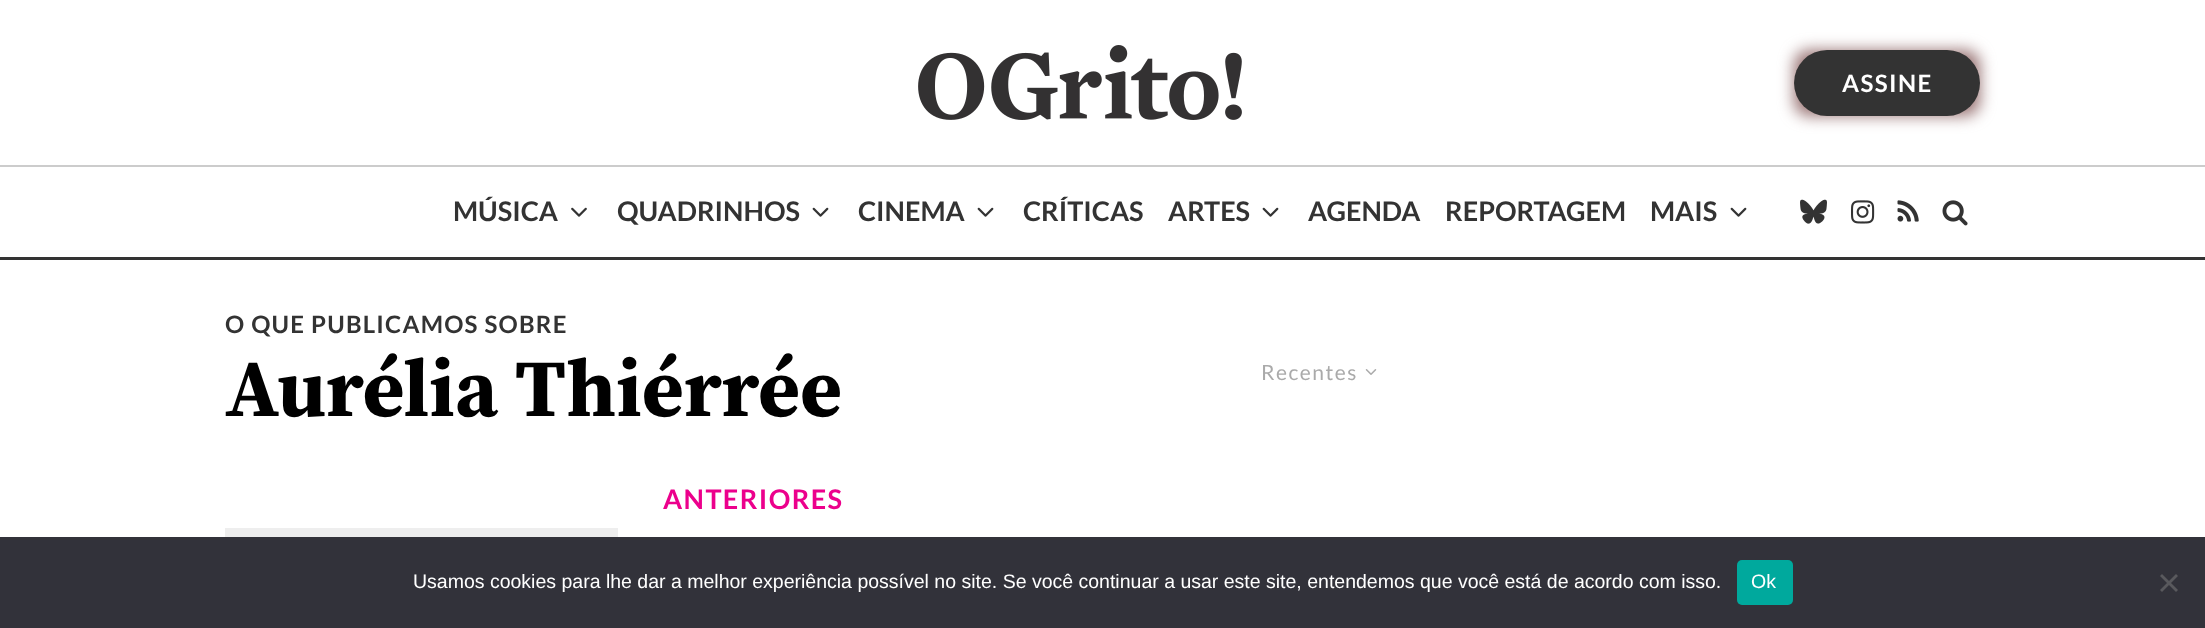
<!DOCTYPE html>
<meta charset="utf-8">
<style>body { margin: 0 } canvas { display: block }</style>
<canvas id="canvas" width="2205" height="628"></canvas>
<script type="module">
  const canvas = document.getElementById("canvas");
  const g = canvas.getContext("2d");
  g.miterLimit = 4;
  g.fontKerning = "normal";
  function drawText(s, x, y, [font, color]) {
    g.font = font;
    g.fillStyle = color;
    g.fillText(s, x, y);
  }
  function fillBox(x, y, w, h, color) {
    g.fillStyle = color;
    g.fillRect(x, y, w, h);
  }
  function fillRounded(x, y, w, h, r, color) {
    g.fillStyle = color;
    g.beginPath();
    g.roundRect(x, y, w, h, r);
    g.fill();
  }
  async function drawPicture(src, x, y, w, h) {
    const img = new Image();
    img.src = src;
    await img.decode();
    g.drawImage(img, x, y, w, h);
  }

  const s1 = ["bold 24px Lato", "#FFFFFF"];
  const s2 = ["bold 27px Lato", "#333333"];
  const s3 = ["bold 24px Lato", "#333333"];
  const s4 = ["bold 81px Source Serif Pro", "#000000"];
  const s5 = ["21px Lato", "#AAAAAA"];
  const s6 = ["bold 27px Lato", "#EC008C"];
  const s7 = ["19.5px Liberation Sans", "#FFFFFF"];

  fillBox(0, 0, 2205, 628, "#FFFFFF");
  await drawPicture("pic1.png", 918, 45, 324, 75);
  g.fillStyle = "#987373";
  g.filter = "blur(7.5px)";
  g.beginPath();
  g.roundRect(1794, 50, 186, 66, 15);
  g.fill();
  g.filter = "none";
  fillRounded(1794, 50, 186, 66, 33, "#333333");
  g.letterSpacing = "1.4px";
  drawText("ASSINE", 1842, 92, s1);
  fillBox(0, 165, 2205, 2, "#CCCCCC");
  fillBox(0, 257, 2205, 3, "#333333");
  g.letterSpacing = "0px";
  drawText("MÚSICA", 453, 221, s2);
  await drawPicture("pic2.png", 571, 207, 16, 10);
  drawText("QUADRINHOS", 617, 221, s2);
  await drawPicture("pic3.png", 812, 207, 17, 10);
  drawText("CINEMA", 858, 221, s2);
  await drawPicture("pic3.png", 977, 207, 17, 10);
  drawText("CRÍTICAS", 1023, 221, s2);
  drawText("ARTES", 1168, 221, s2);
  await drawPicture("pic3.png", 1262, 207, 17, 10);
  drawText("AGENDA", 1308, 221, s2);
  drawText("REPORTAGEM", 1445, 221, s2);
  drawText("MAIS", 1650, 221, s2);
  await drawPicture("pic3.png", 1730, 207, 17, 10);
  await drawPicture("pic4.png", 1800, 199, 27, 25);
  await drawPicture("pic5.png", 1851, 200, 24, 24);
  await drawPicture("pic6.png", 1897, 200, 22, 22);
  await drawPicture("pic7.png", 1942, 200, 26, 26);
  g.letterSpacing = "1.2px";
  drawText("O QUE PUBLICAMOS SOBRE", 225, 333, s3);
  g.letterSpacing = "0px";
  drawText("Aurélia Thiérrée", 225, 416, s4);
  g.letterSpacing = "1.5px";
  drawText("Recentes", 1261, 380, s5);
  await drawPicture("pic8.png", 1365, 369, 12, 6);
  g.letterSpacing = "1.4px";
  drawText("ANTERIORES", 663, 509, s6);
  fillBox(225, 528, 393, 9, "#EEEEEE");
  fillBox(0, 537, 2205, 91, "#32323A");
  g.letterSpacing = "0px";
  drawText("Usamos cookies para lhe dar a melhor experiência possível no site. Se você continuar a usar este site, entendemos que você está de acordo com isso.", 413, 588, s7);
  fillRounded(1737, 560, 56, 45, 5, "#00A99D");
  drawText("Ok", 1751, 588, s7);
  g.fillStyle = "#59595D";
  g.beginPath();
  g.moveTo(2176, 574);
  g.lineTo(2178, 576);
  g.lineTo(2162, 592);
  g.lineTo(2160, 590);
  g.closePath();
  g.fill();
  g.beginPath();
  g.moveTo(2160, 576);
  g.lineTo(2162, 574);
  g.lineTo(2178, 590);
  g.lineTo(2176, 592);
  g.closePath();
  g.fill();
</script>
